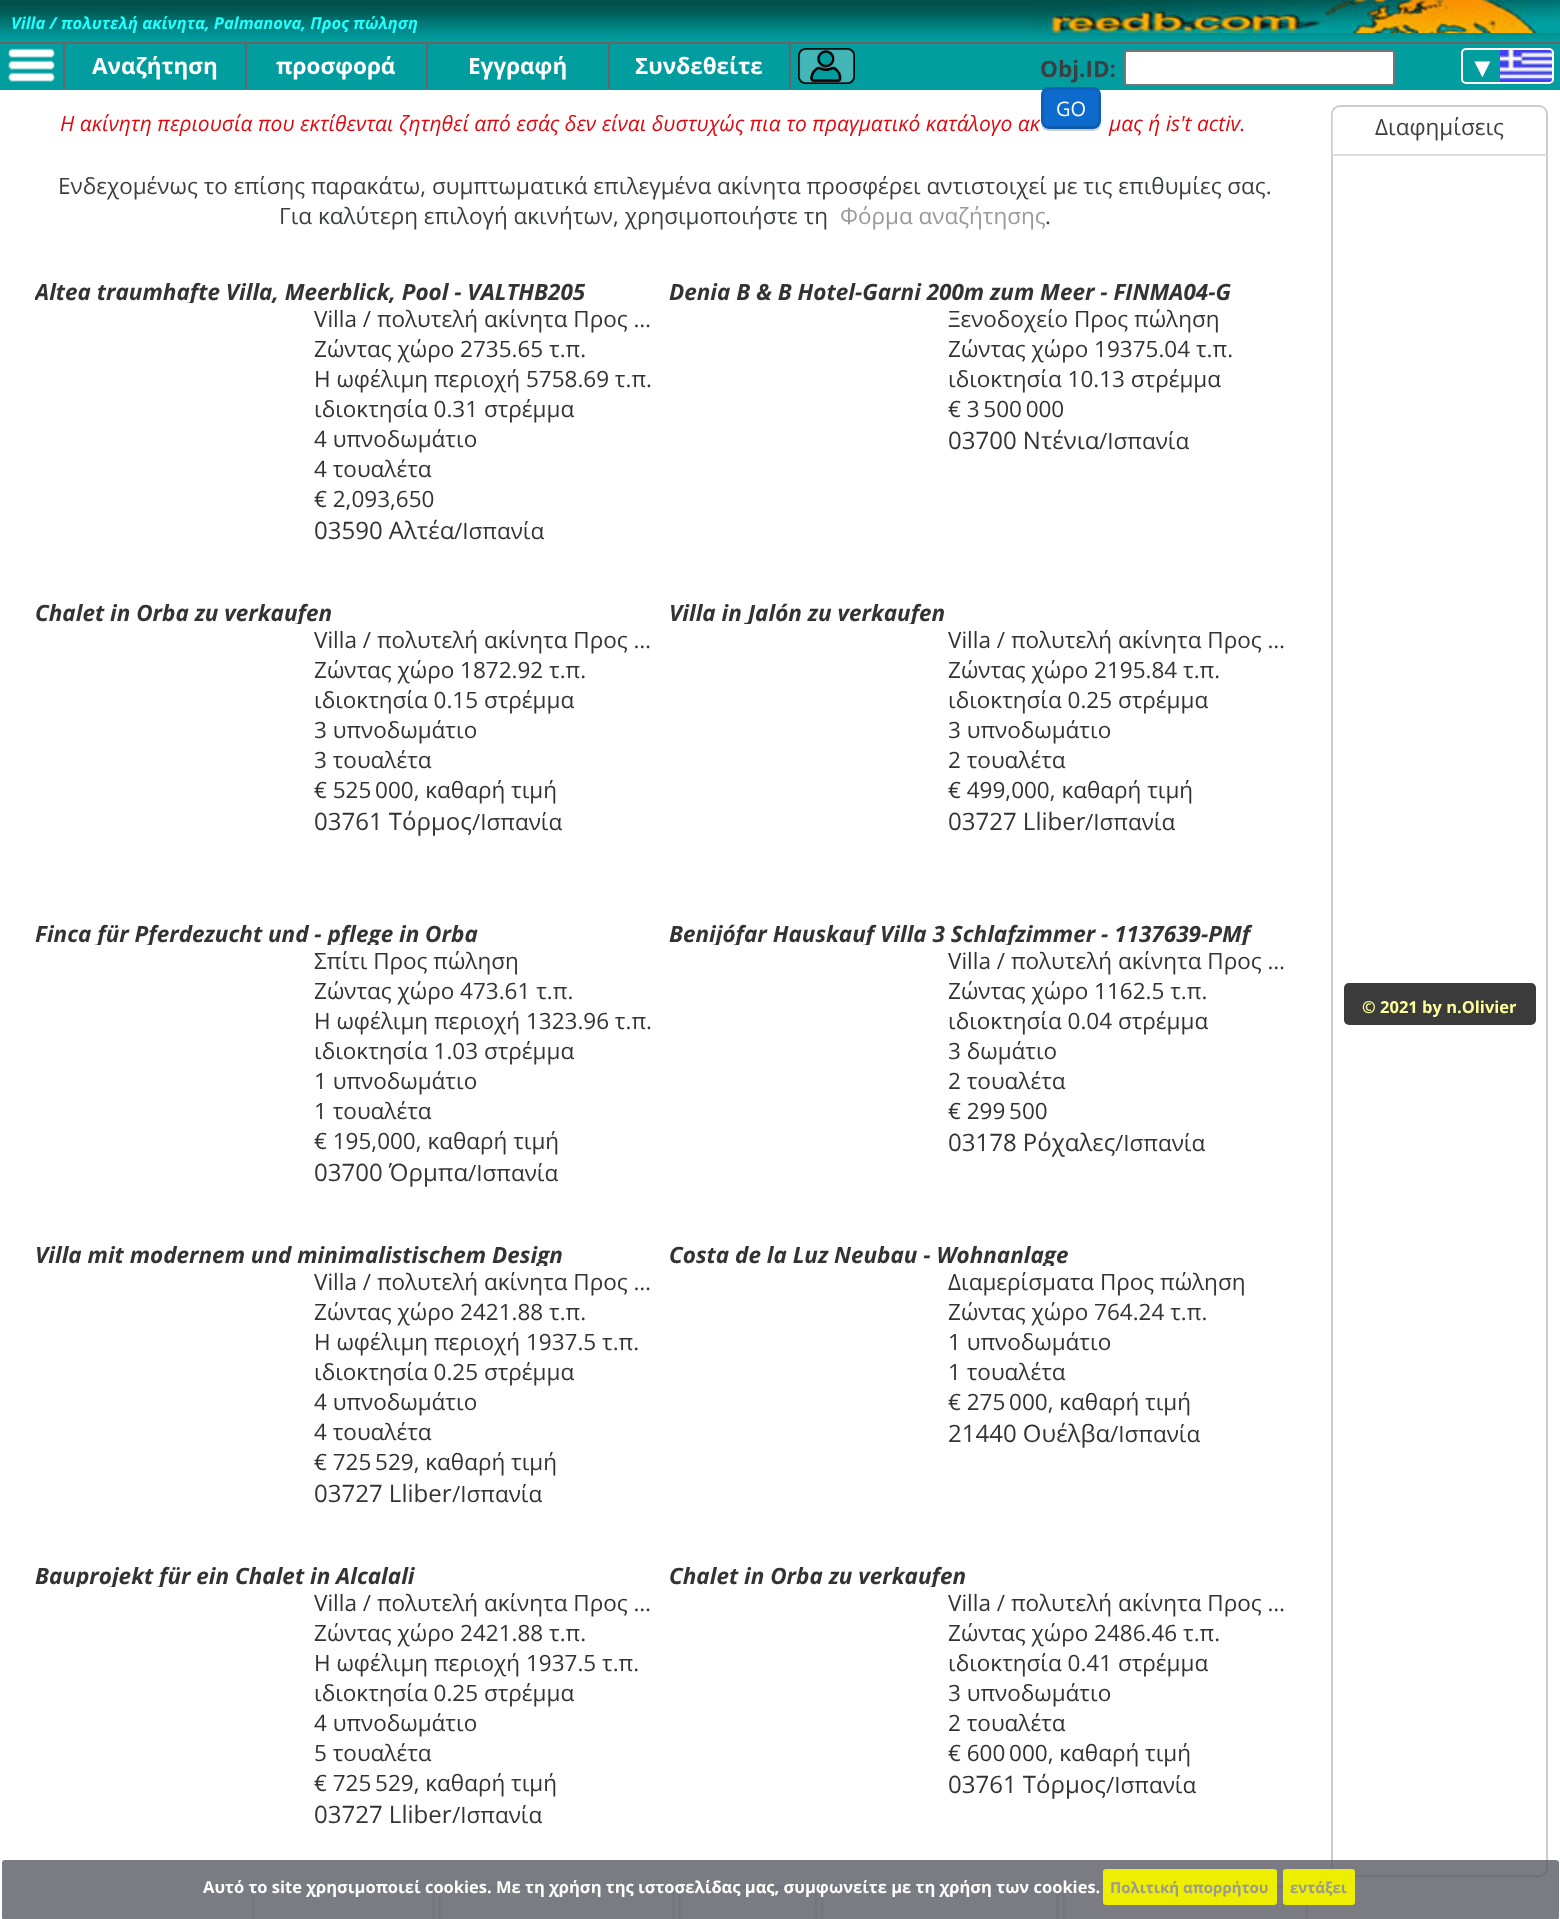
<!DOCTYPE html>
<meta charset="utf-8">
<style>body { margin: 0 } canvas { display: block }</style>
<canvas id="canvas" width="1560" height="1919"></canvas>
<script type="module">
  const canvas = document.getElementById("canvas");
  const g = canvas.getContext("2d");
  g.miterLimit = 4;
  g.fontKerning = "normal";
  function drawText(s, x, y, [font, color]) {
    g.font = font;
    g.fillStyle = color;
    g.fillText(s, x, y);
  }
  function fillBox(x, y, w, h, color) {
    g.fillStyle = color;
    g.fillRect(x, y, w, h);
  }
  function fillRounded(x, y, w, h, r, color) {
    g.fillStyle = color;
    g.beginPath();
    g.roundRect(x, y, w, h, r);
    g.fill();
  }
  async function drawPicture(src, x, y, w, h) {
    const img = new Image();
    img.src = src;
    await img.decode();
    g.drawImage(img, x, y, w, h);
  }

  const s1 = ["italic bold 16.5px Open Sans", "#22FFFF"];
  const s2 = ["bold 22.5px Open Sans", "#FFFFFF"];
  const s3 = ["bold 22.5px Open Sans", "#3C3F41"];
  const s4 = ["20px Open Sans", "#FFFFFF"];
  const s5 = ["27px Liberation Sans", "#FFFFFF"];
  const s6 = ["italic 21px Open Sans", "#DF0A11"];
  const s7 = ["22.5px Open Sans", "#3C3F41"];
  const s8 = ["22.5px Open Sans", "#999999"];
  const s9 = ["italic bold 22.5px Open Sans", "#333333"];
  const s10 = ["22.5px Open Sans", "#333333"];
  const s11 = ["24px Open Sans", "#333333"];
  const s12 = ["bold 16.5px Open Sans", "#FFFF99"];
  const s13 = ["bold 16.5px Open Sans", "#FFFFFF"];
  const s14 = ["bold 15px Open Sans", "#999999"];

  fillBox(0, 0, 1560, 1919, "#FFFFFF");
  fillBox(0, 39, 1560, 51, "#029D9F");
  await drawPicture("pic1.png", 0, 0, 1560, 39);
  await drawPicture("pic2.png", 1035, 0, 525, 33);
  drawText("Villa / πολυτελή ακίνητα, Palmanova, Προς πώληση", 11, 29, s1);
  fillBox(0, 42, 1560, 2, "#666666");
  await drawPicture("pic3.png", 8, 48, 47, 34);
  fillBox(245, 44, 2, 45, "#666666");
  fillBox(63, 44, 2, 45, "#666666");
  drawText("Αναζήτηση", 92, 74, s2);
  fillBox(426, 44, 2, 45, "#666666");
  drawText("προσφορά", 276, 74, s2);
  fillBox(608, 44, 2, 45, "#666666");
  drawText("Εγγραφή", 468, 74, s2);
  fillBox(789, 44, 2, 45, "#666666");
  drawText("Συνδεθείτε", 635, 74, s2);
  await drawPicture("pic4.png", 798, 48, 57, 36);
  drawText("Obj.ID:", 1040, 77, s3);
  g.fillStyle = "#FFFFFF";
  g.beginPath();
  g.roundRect(1125, 51, 269, 34, 2);
  g.fill();
  g.strokeStyle = "#767676";
  g.lineWidth = 2;
  g.stroke();
  g.fillStyle = "rgba(0, 0, 0, 0.2)";
  g.beginPath();
  g.moveTo(1041, 122);
  g.bezierCurveTo(1041, 132, 1048, 131, 1056, 131);
  g.lineTo(1086, 131);
  g.bezierCurveTo(1094, 131, 1101, 132, 1101, 122);
  g.bezierCurveTo(1101, 126, 1098, 129, 1094, 129);
  g.lineTo(1048, 129);
  g.bezierCurveTo(1044, 129, 1041, 126, 1041, 122);
  g.closePath();
  g.fill();
  fillRounded(1041, 87, 60, 42, 8, "#0E6BCE");
  g.beginPath();
  g.moveTo(1097.5, 125.5);
  g.bezierCurveTo(1096.5, 127, 1095, 127.5, 1093.5, 127.5);
  g.lineTo(1048.5, 127.5);
  g.bezierCurveTo(1047, 127.5, 1045.5, 127, 1044.5, 125.5);
  g.strokeStyle = "rgba(0, 0, 0, 0.15)";
  g.lineWidth = 3;
  g.stroke();
  g.beginPath();
  g.moveTo(1044.5, 125.5);
  g.bezierCurveTo(1042, 123.5, 1042.5, 120, 1042.5, 117);
  g.lineTo(1042.5, 93.5);
  g.bezierCurveTo(1044, 87, 1051.5, 88.5, 1056, 88.5);
  g.lineTo(1086, 88.5);
  g.bezierCurveTo(1090.5, 88.5, 1098, 87, 1099.5, 93.5);
  g.lineTo(1099.5, 117);
  g.bezierCurveTo(1099.5, 120, 1100, 123.5, 1097.5, 125.5);
  g.strokeStyle = "rgba(0, 0, 0, 0.1)";
  g.stroke();
  drawText("GO", 1056, 116, s4);
  await drawPicture("pic5.png", 1500, 48, 53, 36);
  g.beginPath();
  g.roundRect(1462, 49, 91, 34, 4);
  g.strokeStyle = "#FFFFFF";
  g.lineWidth = 2;
  g.stroke();
  drawText("▼", 1469, 77, s5);
  drawText("Η ακίνητη περιουσία που εκτίθενται ζητηθεί από εσάς δεν είναι δυστυχώς πια το πραγματικό κατάλογο ακ", 60, 131, s6);
  drawText("μας ή is't activ.", 1109, 131, s6);
  drawText("Ενδεχομένως το επίσης παρακάτω, συμπτωματικά επιλεγμένα ακίνητα προσφέρει αντιστοιχεί με τις επιθυμίες σας.", 58, 194, s7);
  drawText("Για καλύτερη επιλογή ακινήτων, χρησιμοποιήστε τη", 279, 224, s7);
  drawText("Φόρμα αναζήτησης", 840, 224, s8);
  drawText(".", 1045, 224, s7);
  g.save();
  g.beginPath();
  g.rect(35, 276, 615, 27);
  g.clip();
  drawText("Altea traumhafte Villa, Meerblick, Pool - VALTHB205", 35, 300, s9);
  g.restore();
  drawText("Villa / πολυτελή ακίνητα Προς …", 314, 327, s10);
  drawText("Ζώντας χώρο 2735.65 τ.π.", 314, 357, s10);
  drawText("Η ωφέλιμη περιοχή 5758.69 τ.π.", 314, 387, s10);
  drawText("ιδιοκτησία 0.31 στρέμμα", 314, 417, s10);
  drawText("4 υπνοδωμάτιο", 314, 447, s10);
  drawText("4 τουαλέτα", 314, 477, s10);
  drawText("€ 2,093,650", 314, 507, s10);
  drawText("03590 Αλτέα", 314, 539, s11);
  drawText("/Ισπανία", 454, 539, s10);
  drawText("Denia B & B Hotel-Garni 200m zum Meer - FINMA04-G", 669, 300, s9);
  drawText("Ξενοδοχείο Προς πώληση", 948, 327, s10);
  drawText("Ζώντας χώρο 19375.04 τ.π.", 948, 357, s10);
  drawText("ιδιοκτησία 10.13 στρέμμα", 948, 387, s10);
  drawText("€ 3 500 000", 948, 417, s10);
  drawText("03700 Ντένια", 948, 449, s11);
  drawText("/Ισπανία", 1099, 449, s10);
  g.save();
  g.beginPath();
  g.rect(35, 597, 615, 27);
  g.clip();
  drawText("Chalet in Orba zu verkaufen", 35, 621, s9);
  g.restore();
  drawText("Villa / πολυτελή ακίνητα Προς …", 314, 648, s10);
  drawText("Ζώντας χώρο 1872.92 τ.π.", 314, 678, s10);
  drawText("ιδιοκτησία 0.15 στρέμμα", 314, 708, s10);
  drawText("3 υπνοδωμάτιο", 314, 738, s10);
  drawText("3 τουαλέτα", 314, 768, s10);
  drawText("€ 525 000, καθαρή τιμή", 314, 798, s10);
  drawText("03761 Τόρμος", 314, 830, s11);
  drawText("/Ισπανία", 472, 830, s10);
  g.save();
  g.beginPath();
  g.rect(669, 597, 614, 27);
  g.clip();
  drawText("Villa in Jalón zu verkaufen", 669, 621, s9);
  g.restore();
  drawText("Villa / πολυτελή ακίνητα Προς …", 948, 648, s10);
  drawText("Ζώντας χώρο 2195.84 τ.π.", 948, 678, s10);
  drawText("ιδιοκτησία 0.25 στρέμμα", 948, 708, s10);
  drawText("3 υπνοδωμάτιο", 948, 738, s10);
  drawText("2 τουαλέτα", 948, 768, s10);
  drawText("€ 499,000, καθαρή τιμή", 948, 798, s10);
  drawText("03727 Lliber", 948, 830, s11);
  drawText("/Ισπανία", 1085, 830, s10);
  g.save();
  g.beginPath();
  g.rect(35, 918, 615, 27);
  g.clip();
  drawText("Finca für Pferdezucht und - pflege in Orba", 35, 942, s9);
  g.restore();
  drawText("Σπίτι Προς πώληση", 314, 969, s10);
  drawText("Ζώντας χώρο 473.61 τ.π.", 314, 999, s10);
  drawText("Η ωφέλιμη περιοχή 1323.96 τ.π.", 314, 1029, s10);
  drawText("ιδιοκτησία 1.03 στρέμμα", 314, 1059, s10);
  drawText("1 υπνοδωμάτιο", 314, 1089, s10);
  drawText("1 τουαλέτα", 314, 1119, s10);
  drawText("€ 195,000, καθαρή τιμή", 314, 1149, s10);
  drawText("03700 Όρμπα", 314, 1181, s11);
  drawText("/Ισπανία", 468, 1181, s10);
  g.save();
  g.beginPath();
  g.rect(669, 918, 614, 27);
  g.clip();
  drawText("Benijófar Hauskauf Villa 3 Schlafzimmer - 1137639-PMf", 669, 942, s9);
  g.restore();
  drawText("Villa / πολυτελή ακίνητα Προς …", 948, 969, s10);
  drawText("Ζώντας χώρο 1162.5 τ.π.", 948, 999, s10);
  drawText("ιδιοκτησία 0.04 στρέμμα", 948, 1029, s10);
  drawText("3 δωμάτιο", 948, 1059, s10);
  drawText("2 τουαλέτα", 948, 1089, s10);
  drawText("€ 299 500", 948, 1119, s10);
  drawText("03178 Ρόχαλες", 948, 1151, s11);
  drawText("/Ισπανία", 1115, 1151, s10);
  g.save();
  g.beginPath();
  g.rect(35, 1239, 615, 27);
  g.clip();
  drawText("Villa mit modernem und minimalistischem Design", 35, 1263, s9);
  g.restore();
  drawText("Villa / πολυτελή ακίνητα Προς …", 314, 1290, s10);
  drawText("Ζώντας χώρο 2421.88 τ.π.", 314, 1320, s10);
  drawText("Η ωφέλιμη περιοχή 1937.5 τ.π.", 314, 1350, s10);
  drawText("ιδιοκτησία 0.25 στρέμμα", 314, 1380, s10);
  drawText("4 υπνοδωμάτιο", 314, 1410, s10);
  drawText("4 τουαλέτα", 314, 1440, s10);
  drawText("€ 725 529, καθαρή τιμή", 314, 1470, s10);
  drawText("03727 Lliber", 314, 1502, s11);
  drawText("/Ισπανία", 452, 1502, s10);
  g.save();
  g.beginPath();
  g.rect(669, 1239, 614, 27);
  g.clip();
  drawText("Costa de la Luz Neubau - Wohnanlage", 669, 1263, s9);
  g.restore();
  drawText("Διαμερίσματα Προς πώληση", 948, 1290, s10);
  drawText("Ζώντας χώρο 764.24 τ.π.", 948, 1320, s10);
  drawText("1 υπνοδωμάτιο", 948, 1350, s10);
  drawText("1 τουαλέτα", 948, 1380, s10);
  drawText("€ 275 000, καθαρή τιμή", 948, 1410, s10);
  drawText("21440 Ουέλβα", 948, 1442, s11);
  drawText("/Ισπανία", 1110, 1442, s10);
  g.save();
  g.beginPath();
  g.rect(35, 1560, 615, 27);
  g.clip();
  drawText("Bauprojekt für ein Chalet in Alcalali", 35, 1584, s9);
  g.restore();
  drawText("Villa / πολυτελή ακίνητα Προς …", 314, 1611, s10);
  drawText("Ζώντας χώρο 2421.88 τ.π.", 314, 1641, s10);
  drawText("Η ωφέλιμη περιοχή 1937.5 τ.π.", 314, 1671, s10);
  drawText("ιδιοκτησία 0.25 στρέμμα", 314, 1701, s10);
  drawText("4 υπνοδωμάτιο", 314, 1731, s10);
  drawText("5 τουαλέτα", 314, 1761, s10);
  drawText("€ 725 529, καθαρή τιμή", 314, 1791, s10);
  drawText("03727 Lliber", 314, 1823, s11);
  drawText("/Ισπανία", 452, 1823, s10);
  g.save();
  g.beginPath();
  g.rect(669, 1560, 614, 27);
  g.clip();
  drawText("Chalet in Orba zu verkaufen", 669, 1584, s9);
  g.restore();
  drawText("Villa / πολυτελή ακίνητα Προς …", 948, 1611, s10);
  drawText("Ζώντας χώρο 2486.46 τ.π.", 948, 1641, s10);
  drawText("ιδιοκτησία 0.41 στρέμμα", 948, 1671, s10);
  drawText("3 υπνοδωμάτιο", 948, 1701, s10);
  drawText("2 τουαλέτα", 948, 1731, s10);
  drawText("€ 600 000, καθαρή τιμή", 948, 1761, s10);
  drawText("03761 Τόρμος", 948, 1793, s11);
  drawText("/Ισπανία", 1106, 1793, s10);
  g.beginPath();
  g.roundRect(1332, 106, 215, 1770, 8);
  g.strokeStyle = "#CCCCCC";
  g.stroke();
  g.fillStyle = "#DDDDDD";
  g.beginPath();
  g.moveTo(1547, 156);
  g.lineTo(1332, 156);
  g.lineTo(1332, 115);
  g.bezierCurveTo(1332, 114, 1332, 112, 1333, 111);
  g.lineTo(1333, 154);
  g.lineTo(1547, 154);
  g.closePath();
  g.fill();
  drawText("Διαφημίσεις", 1375, 135, s7);
  fillRounded(1344, 983, 192, 42, 5, "#3B3B3B");
  drawText("© 2021 by n.Olivier", 1362, 1013, s12);
  fillRounded(252, 1886, 183, 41, 8, "#FCFCFC");
  g.beginPath();
  g.moveTo(255.5, 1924);
  g.bezierCurveTo(254, 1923, 253.5, 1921.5, 253.5, 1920);
  g.lineTo(253.5, 1893);
  g.bezierCurveTo(253.5, 1891.5, 254, 1890, 255.5, 1889);
  g.bezierCurveTo(256.5, 1887.5, 258, 1887, 259.5, 1887);
  g.lineTo(427.5, 1887);
  g.bezierCurveTo(429, 1887, 430.5, 1887.5, 431.5, 1889);
  g.bezierCurveTo(433, 1890, 433.5, 1891.5, 433.5, 1893);
  g.lineTo(433.5, 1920);
  g.bezierCurveTo(433.5, 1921.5, 433, 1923, 431.5, 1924);
  g.strokeStyle = "#E3E3E3";
  g.lineWidth = 3;
  g.stroke();
  fillRounded(438, 1886, 237, 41, 8, "#FCFCFC");
  g.beginPath();
  g.moveTo(441.5, 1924);
  g.bezierCurveTo(440, 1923, 439.5, 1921.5, 439.5, 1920);
  g.lineTo(439.5, 1893);
  g.bezierCurveTo(439.5, 1891.5, 440, 1890, 441.5, 1889);
  g.bezierCurveTo(442.5, 1887.5, 444, 1887, 445.5, 1887);
  g.lineTo(667.5, 1887);
  g.bezierCurveTo(669, 1887, 670.5, 1887.5, 671.5, 1889);
  g.bezierCurveTo(673, 1890, 673.5, 1891.5, 673.5, 1893);
  g.lineTo(673.5, 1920);
  g.bezierCurveTo(673.5, 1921.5, 673, 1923, 671.5, 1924);
  g.stroke();
  fillRounded(678, 1886, 140, 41, 8, "#FCFCFC");
  g.beginPath();
  g.moveTo(681.5, 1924);
  g.bezierCurveTo(678, 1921, 679.5, 1915, 679.5, 1911);
  g.bezierCurveTo(679.5, 1883, 676, 1887, 706, 1887);
  g.lineTo(789, 1887);
  g.bezierCurveTo(819.5, 1887, 816, 1883, 816, 1911);
  g.bezierCurveTo(816, 1915, 817.5, 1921, 814, 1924);
  g.strokeStyle = "rgba(0, 0, 0, 0.1)";
  g.stroke();
  fillRounded(821, 1886, 238, 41, 8, "#FCFCFC");
  g.beginPath();
  g.moveTo(824, 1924);
  g.bezierCurveTo(822.5, 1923, 822, 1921.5, 822, 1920);
  g.lineTo(822, 1893);
  g.bezierCurveTo(822, 1891.5, 822.5, 1890, 824, 1889);
  g.bezierCurveTo(825, 1887.5, 826.5, 1887, 828, 1887);
  g.lineTo(1051.5, 1887);
  g.bezierCurveTo(1053, 1887, 1054.5, 1887.5, 1055.5, 1889);
  g.bezierCurveTo(1057, 1890, 1057.5, 1891.5, 1057.5, 1893);
  g.lineTo(1057.5, 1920);
  g.bezierCurveTo(1057.5, 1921.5, 1057, 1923, 1055.5, 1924);
  g.stroke();
  fillRounded(1062, 1886, 246, 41, 8, "#FCFCFC");
  g.beginPath();
  g.moveTo(1065.5, 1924);
  g.bezierCurveTo(1064, 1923, 1063.5, 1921.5, 1063.5, 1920);
  g.lineTo(1063.5, 1893);
  g.bezierCurveTo(1063.5, 1891.5, 1064, 1890, 1065.5, 1889);
  g.bezierCurveTo(1066.5, 1887.5, 1068, 1887, 1069.5, 1887);
  g.lineTo(1300.5, 1887);
  g.bezierCurveTo(1302, 1887, 1303.5, 1887.5, 1304.5, 1889);
  g.bezierCurveTo(1306, 1890, 1306.5, 1891.5, 1306.5, 1893);
  g.lineTo(1306.5, 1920);
  g.bezierCurveTo(1306.5, 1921.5, 1306, 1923, 1304.5, 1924);
  g.strokeStyle = "#E3E3E3";
  g.stroke();
  fillRounded(2, 1860, 1557, 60, 3, "rgba(90, 90, 100, 0.8)");
  drawText("Αυτό το site χρησιμοποιεί cookies. Με τη χρήση της ιστοσελίδας μας, συμφωνείτε με τη χρήση των cookies.", 203, 1893, s13);
  fillRounded(1103, 1869, 174, 36, 3, "#EEEE00");
  drawText("Πολιτική απορρήτου", 1110, 1893, s14);
  fillRounded(1283, 1869, 72, 36, 3, "#EEEE00");
  drawText("εντάξει", 1290, 1893, s14);
</script>
